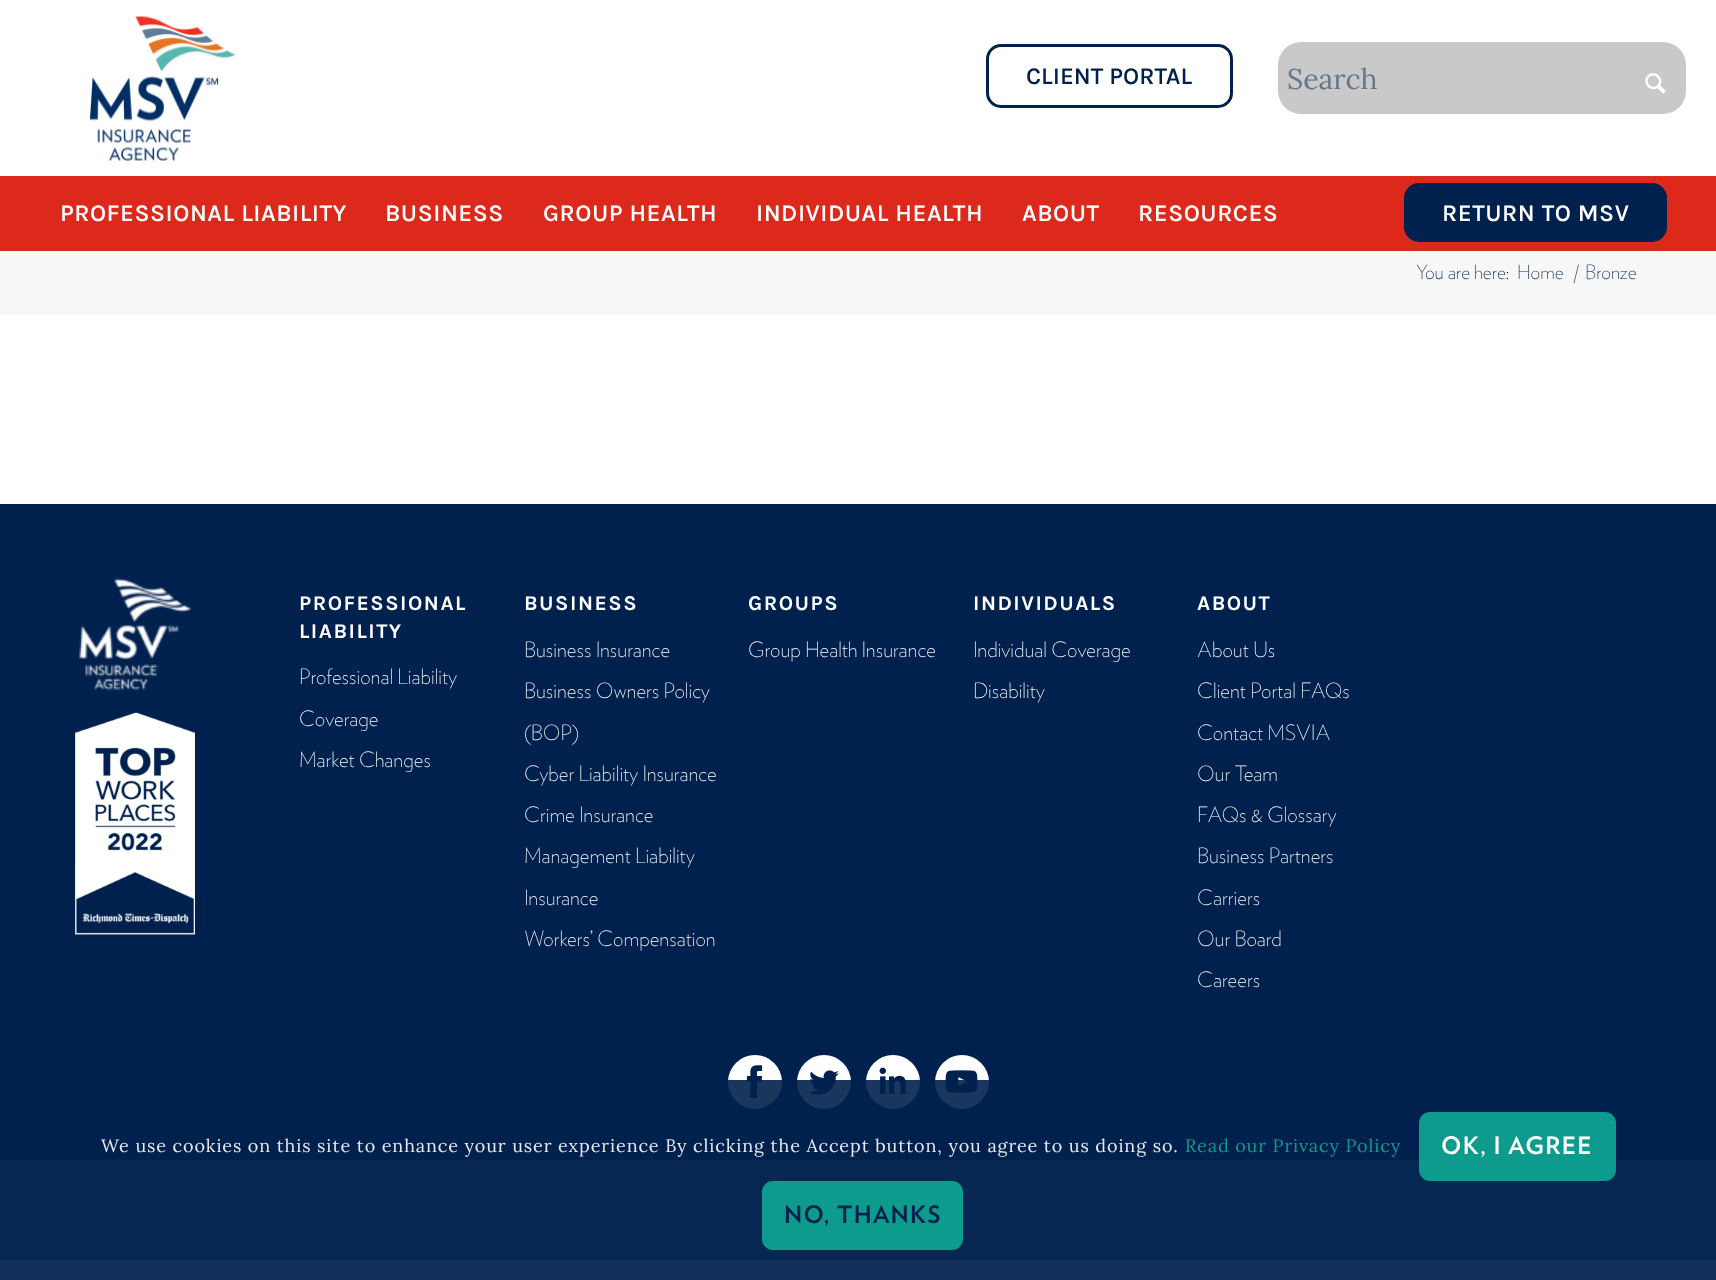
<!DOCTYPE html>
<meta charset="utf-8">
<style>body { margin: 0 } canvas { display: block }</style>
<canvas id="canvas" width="1716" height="1280"></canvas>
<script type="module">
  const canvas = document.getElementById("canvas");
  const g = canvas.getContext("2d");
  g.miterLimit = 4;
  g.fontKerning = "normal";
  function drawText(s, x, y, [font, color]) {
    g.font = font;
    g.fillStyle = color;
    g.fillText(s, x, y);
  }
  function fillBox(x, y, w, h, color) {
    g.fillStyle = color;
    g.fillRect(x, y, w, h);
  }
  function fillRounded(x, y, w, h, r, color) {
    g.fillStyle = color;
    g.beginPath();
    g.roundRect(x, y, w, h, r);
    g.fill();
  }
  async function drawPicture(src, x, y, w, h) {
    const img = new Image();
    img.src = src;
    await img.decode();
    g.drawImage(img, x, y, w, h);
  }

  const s1 = ["600 24px Karla", "#00214E"];
  const s2 = ["28.5px Lora", "#65758C"];
  const s3 = ["600 24px Karla", "#FFFFFF"];
  const s4 = ["300 19.5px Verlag", "#00214E"];
  const s5 = ["bold 21px Karla", "#FFFFFF"];
  const s6 = ["300 21px Verlag", "#FFFFFF"];
  const s7 = ["18px Lora", "#E6E9ED"];
  const s8 = ["18px Lora", "#0D9B8D"];
  const s9 = ["bold 24px Verlag", "#FFFFFF"];
  const s10 = ["bold 24px Verlag", "#00214E"];

  fillBox(0, 0, 1716, 1280, "#ACC0C7");
  fillBox(0, 315, 1716, 189, "#FFFFFF");
  fillBox(0, 0, 1716, 176, "#FFFFFF");
  await drawPicture("pic1.png", 90, 16, 146, 145);
  g.beginPath();
  g.roundRect(987.5, 45.5, 244, 61, 13.5);
  g.strokeStyle = "#00204E";
  g.lineWidth = 3;
  g.stroke();
  drawText("CLIENT PORTAL", 1026, 84, s1);
  fillRounded(1278, 42, 408, 72, 23, "#C9C9C9");
  drawText("Search", 1287, 89, s2);
  await drawPicture("pic2.png", 1645, 73, 21, 21);
  fillBox(0, 176, 1716, 75, "#DC291C");
  g.letterSpacing = "0.5px";
  drawText("PROFESSIONAL LIABILITY", 60, 221, s3);
  drawText("BUSINESS", 385, 221, s3);
  drawText("GROUP HEALTH", 543, 221, s3);
  drawText("INDIVIDUAL HEALTH", 756, 221, s3);
  drawText("ABOUT", 1022, 221, s3);
  drawText("RESOURCES", 1138, 221, s3);
  fillRounded(1404, 183, 263, 59, 15, "#00214E");
  drawText("RETURN TO MSV", 1442, 221, s3);
  fillBox(0, 251, 1716, 64, "#F7F7F7");
  g.letterSpacing = "0px";
  drawText("You are here:", 1416, 279, s4);
  drawText("Home", 1517, 279, s4);
  drawText("/", 1573, 279, s4);
  drawText("Bronze", 1585, 279, s4);
  fillBox(0, 504, 1716, 656, "#00214E");
  await drawPicture("pic3.png", 79, 578, 112, 113);
  await drawPicture("pic4.png", 75, 712, 120, 223);
  g.letterSpacing = "1.5px";
  drawText("PROFESSIONAL", 299, 610, s5);
  drawText("LIABILITY", 299, 638, s5);
  g.letterSpacing = "0px";
  drawText("Professional Liability", 299, 684, s6);
  drawText("Coverage", 299, 726, s6);
  drawText("Market Changes", 299, 767, s6);
  g.letterSpacing = "1.5px";
  drawText("BUSINESS", 524, 610, s5);
  g.letterSpacing = "0px";
  drawText("Business Insurance", 524, 657, s6);
  drawText("Business Owners Policy", 524, 698, s6);
  drawText("(BOP)", 524, 740, s6);
  drawText("Cyber Liability Insurance", 524, 781, s6);
  drawText("Crime Insurance", 524, 822, s6);
  drawText("Management Liability", 524, 863, s6);
  drawText("Insurance", 524, 905, s6);
  drawText("Workers’ Compensation", 524, 946, s6);
  g.letterSpacing = "1.5px";
  drawText("GROUPS", 748, 610, s5);
  g.letterSpacing = "0px";
  drawText("Group Health Insurance", 748, 657, s6);
  g.letterSpacing = "1.5px";
  drawText("INDIVIDUALS", 973, 610, s5);
  g.letterSpacing = "0px";
  drawText("Individual Coverage", 973, 657, s6);
  drawText("Disability", 973, 698, s6);
  g.letterSpacing = "1.5px";
  drawText("ABOUT", 1197, 610, s5);
  g.letterSpacing = "0px";
  drawText("About Us", 1197, 657, s6);
  drawText("Client Portal FAQs", 1197, 698, s6);
  drawText("Contact MSVIA", 1197, 740, s6);
  drawText("Our Team", 1197, 781, s6);
  drawText("FAQs & Glossary", 1197, 822, s6);
  drawText("Business Partners", 1197, 863, s6);
  drawText("Carriers", 1197, 905, s6);
  drawText("Our Board", 1197, 946, s6);
  drawText("Careers", 1197, 987, s6);
  g.beginPath();
  g.arc(755, 1082, 27, 0, Math.PI * 2);
  g.fill();
  await drawPicture("pic5.png", 746, 1065, 17, 34);
  g.beginPath();
  g.arc(824, 1082, 27, 0, Math.PI * 2);
  g.fill();
  await drawPicture("pic6.png", 809, 1070, 30, 25);
  g.beginPath();
  g.arc(893, 1082, 27, 0, Math.PI * 2);
  g.fill();
  await drawPicture("pic7.png", 879, 1067, 27, 27);
  g.beginPath();
  g.arc(962, 1082, 27, 0, Math.PI * 2);
  g.fill();
  await drawPicture("pic8.png", 945, 1070, 33, 23);
  fillBox(0, 1160, 1716, 100, "#44677D");
  fillBox(0, 1080, 1716, 200, "rgba(0, 32, 78, 0.9)");
  g.letterSpacing = "0.9px";
  drawText("We use cookies on this site to enhance your user experience By clicking the Accept button, you agree to us doing so.", 101, 1152, s7);
  drawText("Read our Privacy Policy", 1185, 1152, s8);
  fillRounded(1419, 1112, 197, 69, 11, "#0D9B8D");
  g.letterSpacing = "1.25px";
  drawText("OK, I AGREE", 1441, 1154, s9);
  fillRounded(762, 1181, 201, 69, 11, "#0D9B8D");
  drawText("NO, THANKS", 784, 1223, s10);
</script>
